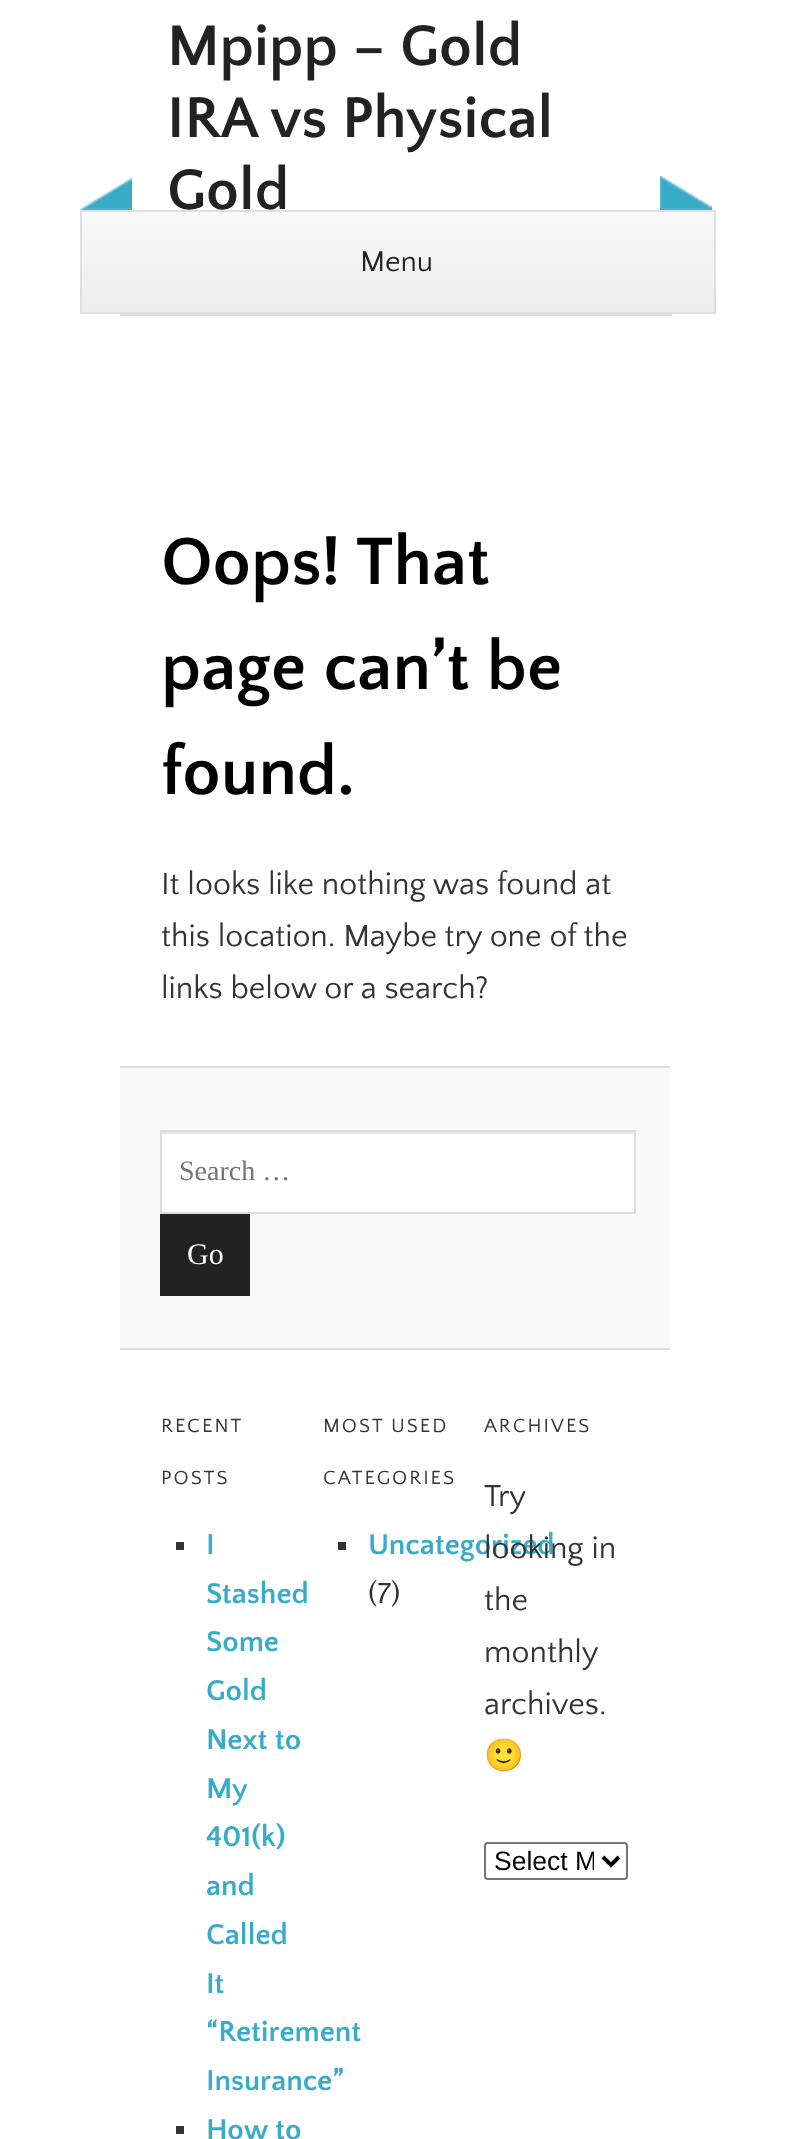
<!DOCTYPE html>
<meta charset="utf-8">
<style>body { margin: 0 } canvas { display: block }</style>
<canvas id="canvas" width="789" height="2139"></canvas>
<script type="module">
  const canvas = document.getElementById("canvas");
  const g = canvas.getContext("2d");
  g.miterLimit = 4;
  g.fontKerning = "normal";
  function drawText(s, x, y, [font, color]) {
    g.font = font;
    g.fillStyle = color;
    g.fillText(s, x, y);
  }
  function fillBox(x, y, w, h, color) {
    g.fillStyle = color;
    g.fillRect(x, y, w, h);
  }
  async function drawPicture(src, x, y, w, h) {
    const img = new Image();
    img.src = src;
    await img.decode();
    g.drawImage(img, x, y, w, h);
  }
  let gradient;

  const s1 = ["bold 60px Quattrocento Sans", "#222222"];
  const s2 = ["30px Quattrocento Sans", "#222222"];
  const s3 = ["bold 70px Quattrocento Sans", "#000000"];
  const s4 = ["32px Quattrocento Sans", "#333333"];
  const s5 = ["28px Liberation Serif", "#757575"];
  const s6 = ["30px Liberation Serif", "#FFFFFF"];
  const s7 = ["20px Quattrocento Sans", "#333333"];
  const s8 = ["bold 30px Quattrocento Sans", "#37ABC8"];
  const s9 = ["30px Quattrocento Sans", "#333333"];
  const s10 = ["32px Noto Color Emoji", "#333333"];
  const s11 = ["26.5px Liberation Sans", "#000000"];

  fillBox(0, 0, 789, 2139, "#FFFFFF");
  await drawPicture("pic1.png", 80, 177, 52, 33);
  drawText("Mpipp – Gold", 167, 65, s1);
  drawText("IRA vs Physical", 167, 137, s1);
  drawText("Gold", 167, 209, s1);
  await drawPicture("pic2.png", 660, 176, 52, 34);
  gradient = g.createLinearGradient(398, 312, 398, 212);
  gradient.addColorStop(0, "#ECECEC");
  gradient.addColorStop(1, "#F9F9F9");
  g.fillStyle = gradient;
  g.fillRect(82, 212, 632, 100);
  g.strokeStyle = "#DFDFDF";
  g.lineWidth = 2;
  g.strokeRect(81, 211, 634, 102);
  drawText("Menu", 360, 271, s2);
  fillBox(120, 314, 552, 2, "#DDDDDD");
  drawText("Oops! That", 161, 584, s3);
  drawText("page can’t be", 161, 689, s3);
  drawText("found.", 161, 794, s3);
  drawText("It looks like nothing was found at", 161, 894, s4);
  drawText("this location. Maybe try one of the", 161, 946, s4);
  drawText("links below or a search?", 161, 998, s4);
  fillBox(120, 1068, 550, 280, "#F9F9F9");
  fillBox(120, 1066, 550, 2, "#DDDDDD");
  fillBox(120, 1348, 550, 2, "#DDDDDD");
  fillBox(162, 1134, 472, 78, "#FFFFFF");
  fillBox(162, 1132, 472, 2, "#E6E6E6");
  g.strokeStyle = "#DDDDDD";
  g.strokeRect(161, 1131, 474, 82);
  drawText("Search …", 179, 1180, s5);
  fillBox(160, 1214, 90, 82, "#222222");
  drawText("Go", 187, 1264, s6);
  g.letterSpacing = "2px";
  drawText("RECENT", 161, 1432, s7);
  drawText("POSTS", 161, 1484, s7);
  fillBox(176, 1542, 8, 8, "#333333");
  g.letterSpacing = "0px";
  drawText("I", 206, 1554, s8);
  drawText("Stashed", 206, 1603, s8);
  drawText("Some", 206, 1651, s8);
  drawText("Gold", 206, 1700, s8);
  drawText("Next to", 206, 1749, s8);
  drawText("My", 206, 1798, s8);
  drawText("401(k)", 206, 1846, s8);
  drawText("and", 206, 1895, s8);
  drawText("Called", 206, 1944, s8);
  drawText("It", 206, 1993, s8);
  drawText("“Retirement", 206, 2041, s8);
  drawText("Insurance”", 206, 2090, s8);
  fillBox(176, 2126, 8, 8, "#333333");
  drawText("How to", 206, 2139, s8);
  g.letterSpacing = "2px";
  drawText("MOST USED", 323, 1432, s7);
  drawText("CATEGORIES", 323, 1484, s7);
  fillBox(338, 1542, 8, 8, "#333333");
  g.letterSpacing = "0px";
  drawText("Uncategorized", 368, 1554, s8);
  drawText("(7)", 368, 1603, s9);
  g.letterSpacing = "2px";
  drawText("ARCHIVES", 484, 1432, s7);
  g.letterSpacing = "0px";
  drawText("Try", 484, 1506, s4);
  drawText("looking in", 484, 1558, s4);
  drawText("the", 484, 1610, s4);
  drawText("monthly", 484, 1662, s4);
  drawText("archives.", 484, 1714, s4);
  drawText("🙂", 484, 1766, s10);
  g.beginPath();
  g.roundRect(485, 1843, 142, 36, 3);
  g.strokeStyle = "#767676";
  g.stroke();
  g.beginPath();
  g.moveTo(603, 1857);
  g.lineTo(611, 1865);
  g.lineTo(619, 1857);
  g.strokeStyle = "#000000";
  g.lineWidth = 4;
  g.stroke();
  g.save();
  g.beginPath();
  g.rect(494, 1844, 100, 34);
  g.clip();
  drawText("Select M", 494, 1870, s11);
  g.restore();
</script>
